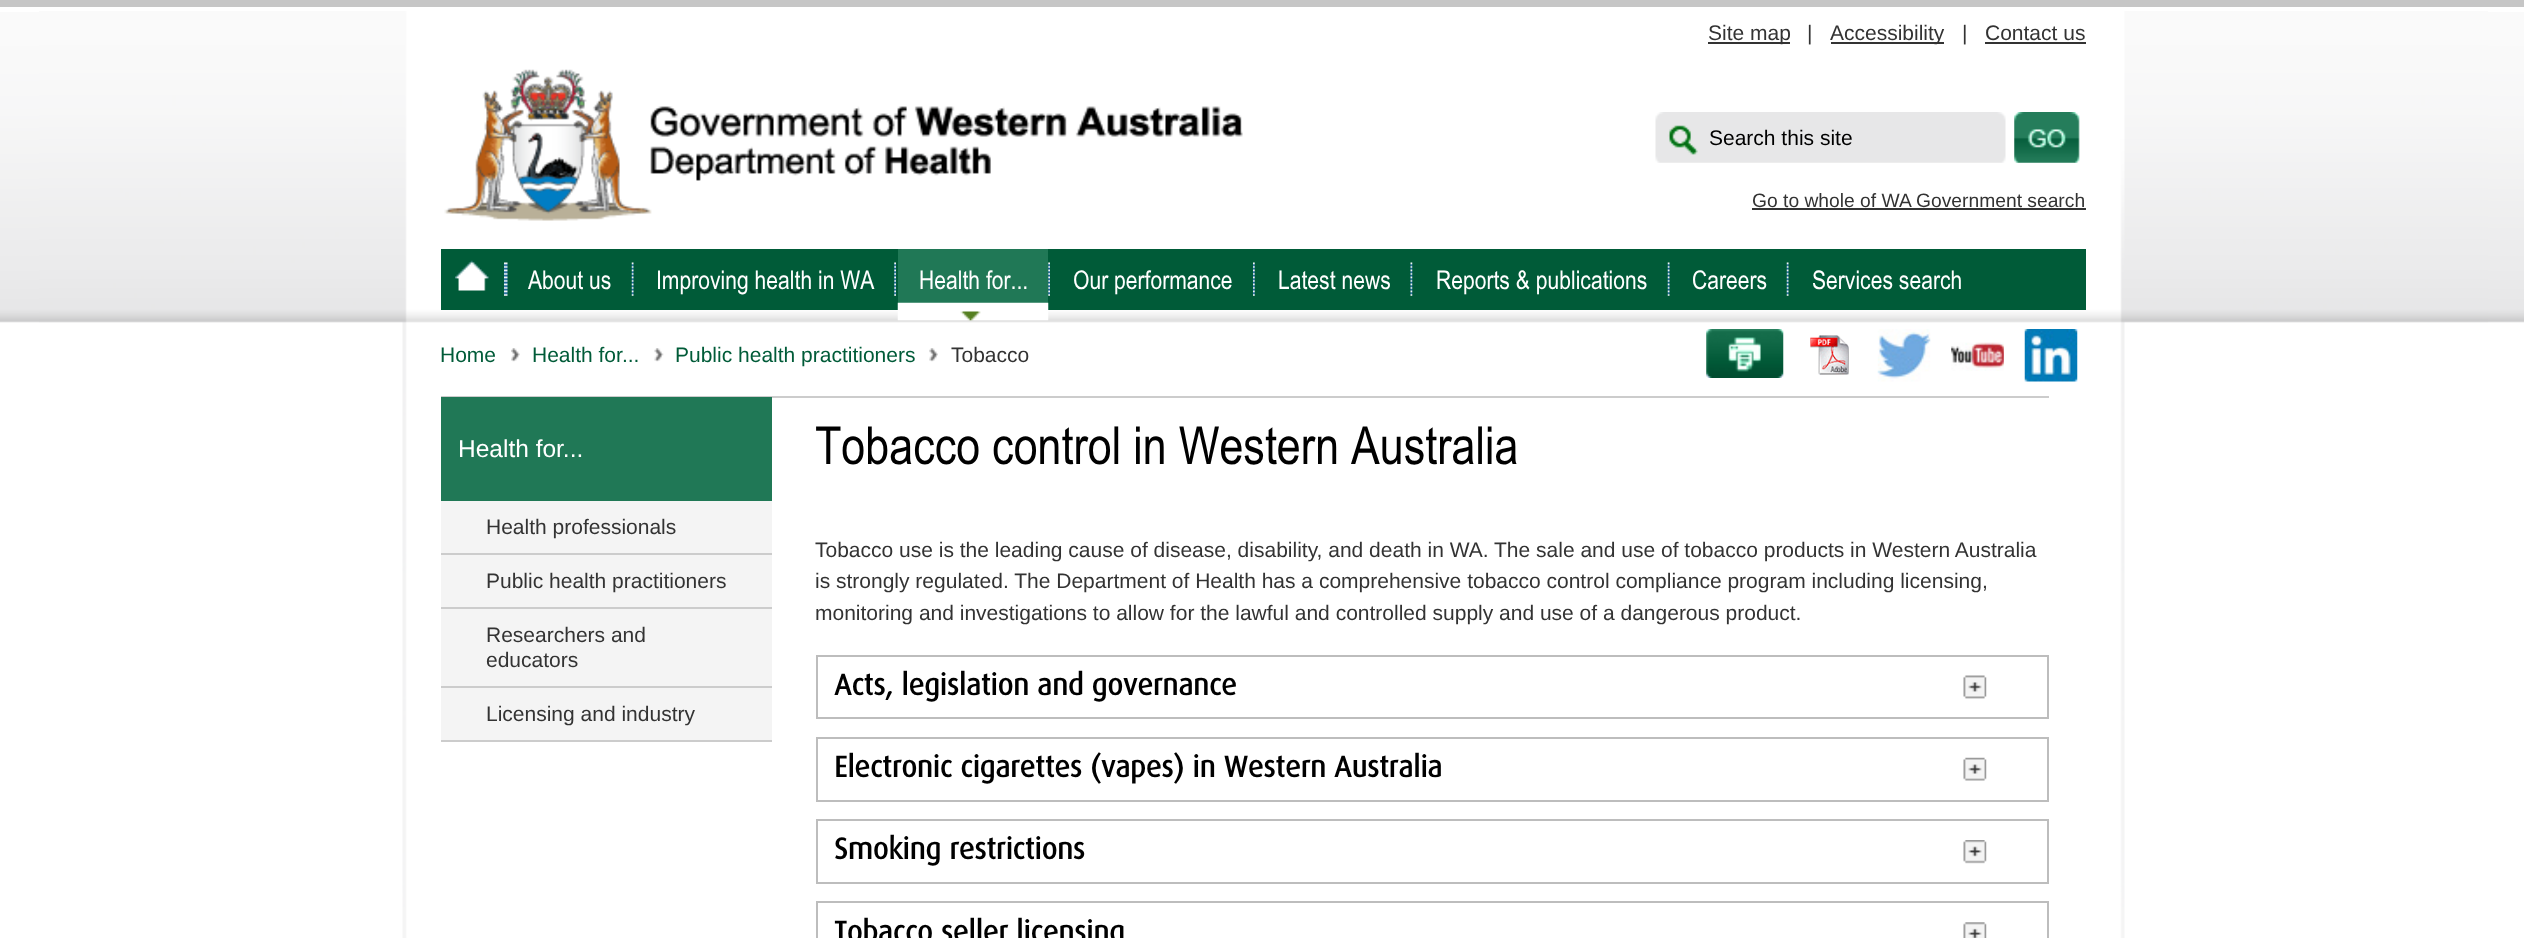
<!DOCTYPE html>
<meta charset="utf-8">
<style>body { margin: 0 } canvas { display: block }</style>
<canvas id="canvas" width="2524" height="938"></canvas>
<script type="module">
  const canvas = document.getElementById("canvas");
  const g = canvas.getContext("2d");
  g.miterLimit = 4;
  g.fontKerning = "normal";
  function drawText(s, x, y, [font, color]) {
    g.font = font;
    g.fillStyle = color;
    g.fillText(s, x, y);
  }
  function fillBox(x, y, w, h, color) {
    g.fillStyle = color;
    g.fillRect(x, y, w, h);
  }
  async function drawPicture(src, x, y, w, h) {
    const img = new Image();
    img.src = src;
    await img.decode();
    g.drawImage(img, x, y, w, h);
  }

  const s1 = ["21px Liberation Sans", "#333333"];
  const s2 = ["21px Liberation Sans", "#000000"];
  const s3 = ["19.25px Liberation Sans", "#333333"];
  const s4 = ["25.75px Arial", "#FFFFFF"];
  const s5 = ["21px Liberation Sans", "#005B38"];
  const s6 = ["24.5px Liberation Sans", "#FFFFFF"];
  const s7 = ["52.5px Arial", "#000000"];
  const s8 = ["bold 29.75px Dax", "#000000"];

  fillBox(0, 0, 2524, 938, "#FFFFFF");
  await drawPicture("pic1.png", 0, 12, 2524, 311);
  fillBox(0, 0, 2524, 7, "#C6C6C6");
  await drawPicture("pic2.png", 39, 11, 2449, 927);
  fillBox(1708, 42, 82, 2, "#333333");
  drawText("Site map", 1708, 40, s1);
  drawText("|", 1807, 40, s1);
  fillBox(1831, 42, 113, 2, "#333333");
  drawText("Accessibility", 1830, 40, s1);
  drawText("|", 1962, 40, s1);
  drawText("Contact us", 1985, 40, s1);
  fillBox(1985, 42, 101, 2, "#333333");
  await drawPicture("pic3.png", 444, 69, 799, 152);
  await drawPicture("pic4.png", 1655, 112, 351, 51);
  await drawPicture("pic5.png", 2014, 112, 66, 51);
  drawText("Search this site", 1709, 145, s2);
  drawText("Go to whole of WA Government search", 1752, 207, s3);
  fillBox(1752, 208, 334, 2, "#333333");
  fillBox(441, 249, 1645, 61, "#005B38");
  await drawPicture("pic6.png", 455, 260, 35, 31);
  await drawPicture("pic7.png", 504, 262, 4, 34);
  drawText("About us", 528, 289, s4);
  await drawPicture("pic8.png", 631, 262, 3, 34);
  drawText("Improving health in WA", 656, 289, s4);
  await drawPicture("pic9.png", 894, 262, 2, 34);
  fillBox(898, 249, 150, 54, "#207856");
  await drawPicture("pic10.png", 897, 302, 152, 19);
  drawText("Health for...", 919, 289, s4);
  await drawPicture("pic9.png", 1048, 262, 2, 34);
  drawText("Our performance", 1073, 289, s4);
  await drawPicture("pic11.png", 1253, 262, 2, 34);
  drawText("Latest news", 1278, 289, s4);
  await drawPicture("pic12.png", 1410, 262, 3, 34);
  drawText("Reports & publications", 1436, 289, s4);
  await drawPicture("pic8.png", 1667, 262, 3, 34);
  drawText("Careers", 1692, 289, s4);
  await drawPicture("pic8.png", 1786, 262, 3, 34);
  drawText("Services search", 1812, 289, s4);
  drawText("Home", 440, 362, s5);
  await drawPicture("pic13.png", 511, 348, 9, 14);
  drawText("Health for...", 532, 362, s5);
  await drawPicture("pic14.png", 654, 348, 10, 14);
  drawText("Public health practitioners", 675, 362, s5);
  await drawPicture("pic15.png", 929, 348, 9, 14);
  drawText("Tobacco", 951, 362, s1);
  await drawPicture("pic16.png", 1706, 329, 78, 49);
  await drawPicture("pic17.png", 1810, 335, 39, 40);
  await drawPicture("pic18.png", 1877, 329, 54, 53);
  await drawPicture("pic19.png", 1951, 342, 53, 29);
  await drawPicture("pic20.png", 2024, 329, 54, 53);
  fillBox(441, 396, 1608, 2, "#CCCCCC");
  fillBox(441, 397, 331, 104, "#207856");
  drawText("Health for...", 458, 457, s6);
  fillBox(441, 553, 331, 2, "#CCCCCC");
  fillBox(441, 501, 331, 52, "#F4F4F4");
  drawText("Health professionals", 486, 534, s1);
  fillBox(441, 607, 331, 2, "#CCCCCC");
  fillBox(441, 555, 331, 52, "#F4F4F4");
  drawText("Public health practitioners", 486, 588, s1);
  fillBox(441, 686, 331, 2, "#CCCCCC");
  fillBox(441, 609, 331, 77, "#F4F4F4");
  drawText("Researchers and", 486, 642, s1);
  drawText("educators", 486, 667, s1);
  fillBox(441, 740, 331, 2, "#CCCCCC");
  fillBox(441, 688, 331, 52, "#F4F4F4");
  drawText("Licensing and industry", 486, 721, s1);
  drawText("Tobacco control in Western Australia", 815, 464, s7);
  drawText("Tobacco use is the leading cause of disease, disability, and death in WA. The sale and use of tobacco products in Western Australia", 815, 557, s1);
  drawText("is strongly regulated. The Department of Health has a comprehensive tobacco control compliance program including licensing,", 815, 588, s1);
  drawText("monitoring and investigations to allow for the lawful and controlled supply and use of a dangerous product.", 815, 620, s1);
  g.strokeStyle = "#BDBDBD";
  g.lineWidth = 2;
  g.strokeRect(817, 656, 1231, 62);
  await drawPicture("pic21.png", 1963, 675, 24, 24);
  drawText("Acts, legislation and governance", 834, 695, s8);
  g.strokeRect(817, 738, 1231, 63);
  await drawPicture("pic22.png", 1963, 757, 24, 24);
  drawText("Electronic cigarettes (vapes) in Western Australia", 834, 777, s8);
  g.strokeRect(817, 820, 1231, 63);
  await drawPicture("pic23.png", 1963, 840, 24, 24);
  drawText("Smoking restrictions", 834, 859, s8);
  g.strokeRect(817, 902, 1231, 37);
  await drawPicture("pic24.png", 1963, 922, 24, 16);
  drawText("Tobacco seller licensing", 834, 942, s8);
</script>
